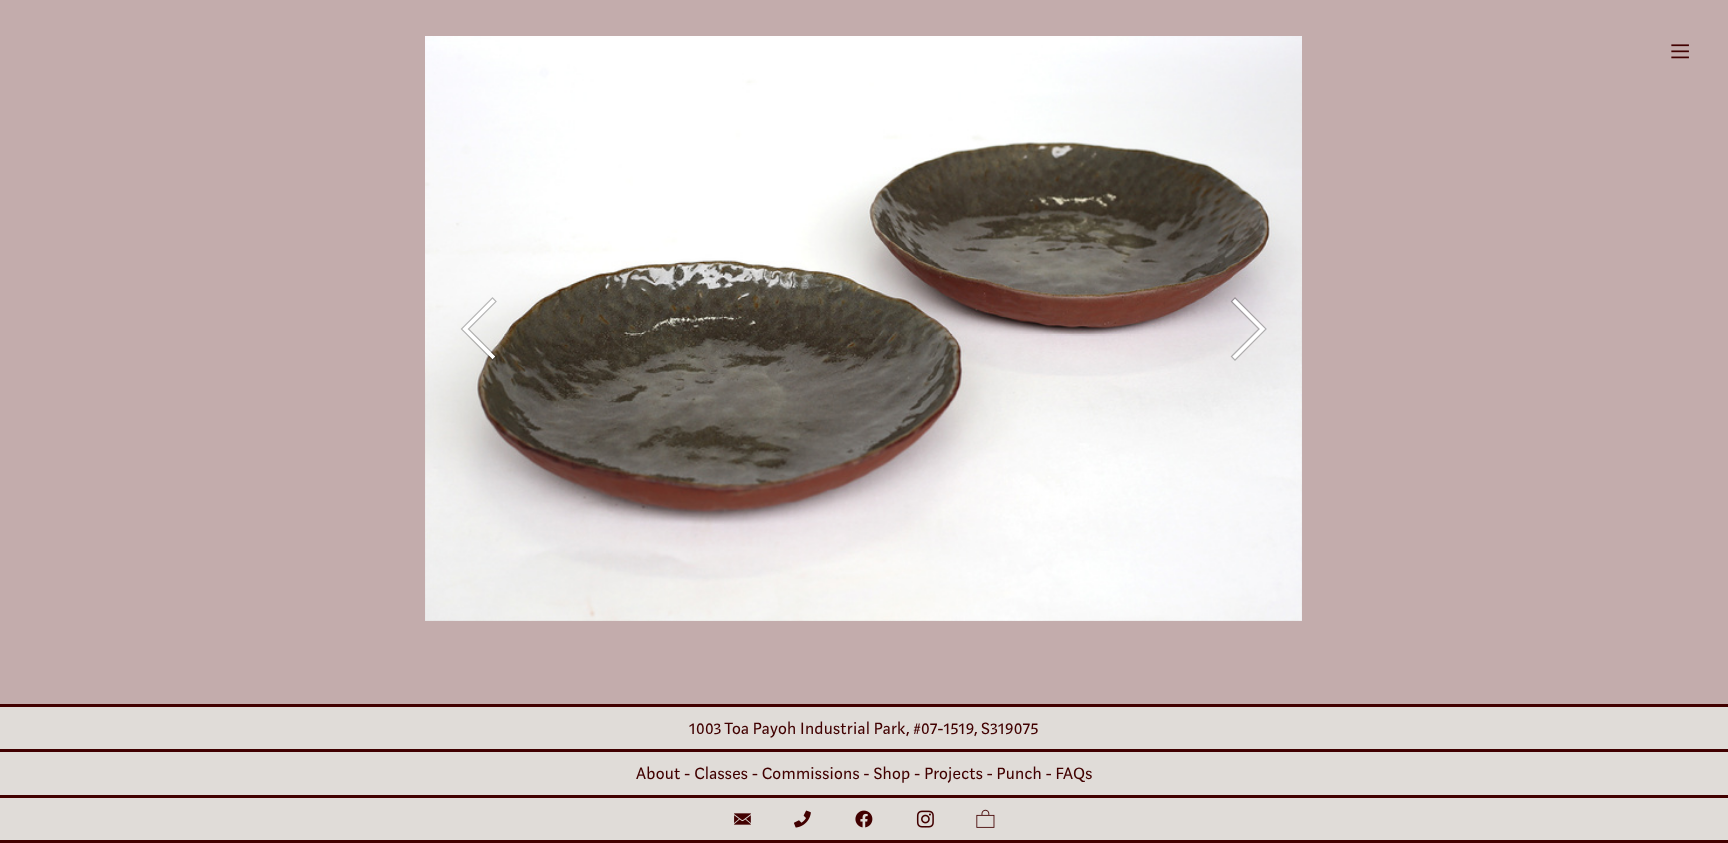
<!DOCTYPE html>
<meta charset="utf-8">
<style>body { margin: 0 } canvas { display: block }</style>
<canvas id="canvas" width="1728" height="843"></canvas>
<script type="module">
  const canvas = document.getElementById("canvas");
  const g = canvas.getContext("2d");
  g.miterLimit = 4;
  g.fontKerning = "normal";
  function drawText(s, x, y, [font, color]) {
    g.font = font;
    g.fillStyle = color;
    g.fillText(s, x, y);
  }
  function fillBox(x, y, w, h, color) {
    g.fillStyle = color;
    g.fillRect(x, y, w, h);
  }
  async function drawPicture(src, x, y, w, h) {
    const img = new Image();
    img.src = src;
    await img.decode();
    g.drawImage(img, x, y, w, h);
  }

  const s1 = ["18.2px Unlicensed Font", "#410000"];

  fillBox(0, 0, 1728, 843, "#C3ACAC");
  await drawPicture("pic1.png", 1671, 44, 18, 15);
  await drawPicture("pic2.png", 425, 36, 877, 585);
  g.beginPath();
  g.moveTo(492.5, 356.5);
  g.lineTo(465, 329);
  g.lineTo(492.5, 301.5);
  g.strokeStyle = "rgba(0, 0, 0, 0.25)";
  g.lineWidth = 6.2;
  g.lineCap = "square";
  g.stroke();
  g.beginPath();
  g.moveTo(492.5, 356.5);
  g.lineTo(465, 329);
  g.lineTo(492.5, 301.5);
  g.strokeStyle = "#FFFFFF";
  g.lineWidth = 3.8;
  g.stroke();
  g.beginPath();
  g.moveTo(1235, 356.5);
  g.lineTo(1262.5, 329);
  g.lineTo(1235, 301.5);
  g.strokeStyle = "rgba(0, 0, 0, 0.25)";
  g.lineWidth = 6.2;
  g.stroke();
  g.beginPath();
  g.moveTo(1235, 356.5);
  g.lineTo(1262.5, 329);
  g.lineTo(1235, 301.5);
  g.strokeStyle = "#FFFFFF";
  g.lineWidth = 3.8;
  g.stroke();
  fillBox(0, 707, 1728, 133, "#E0DCD8");
  fillBox(0, 704, 1728, 3, "#410000");
  g.letterSpacing = "0.25px";
  drawText("1003 Toa Payoh Industrial Park, #07-1519, S319075", 689, 734, s1);
  fillBox(0, 749, 1728, 3, "#410000");
  drawText("About - Classes - Commissions - Shop - Projects - Punch - FAQs", 636, 779, s1);
  fillBox(0, 795, 1728, 3, "#410000");
  await drawPicture("pic3.png", 734, 813, 17, 12);
  await drawPicture("pic4.png", 794, 810, 17, 18);
  await drawPicture("pic5.png", 855, 810, 18, 18);
  await drawPicture("pic6.png", 916, 810, 18, 18);
  await drawPicture("pic7.png", 976, 809, 19, 19);
  fillBox(0, 840, 1728, 3, "#410000");
</script>
